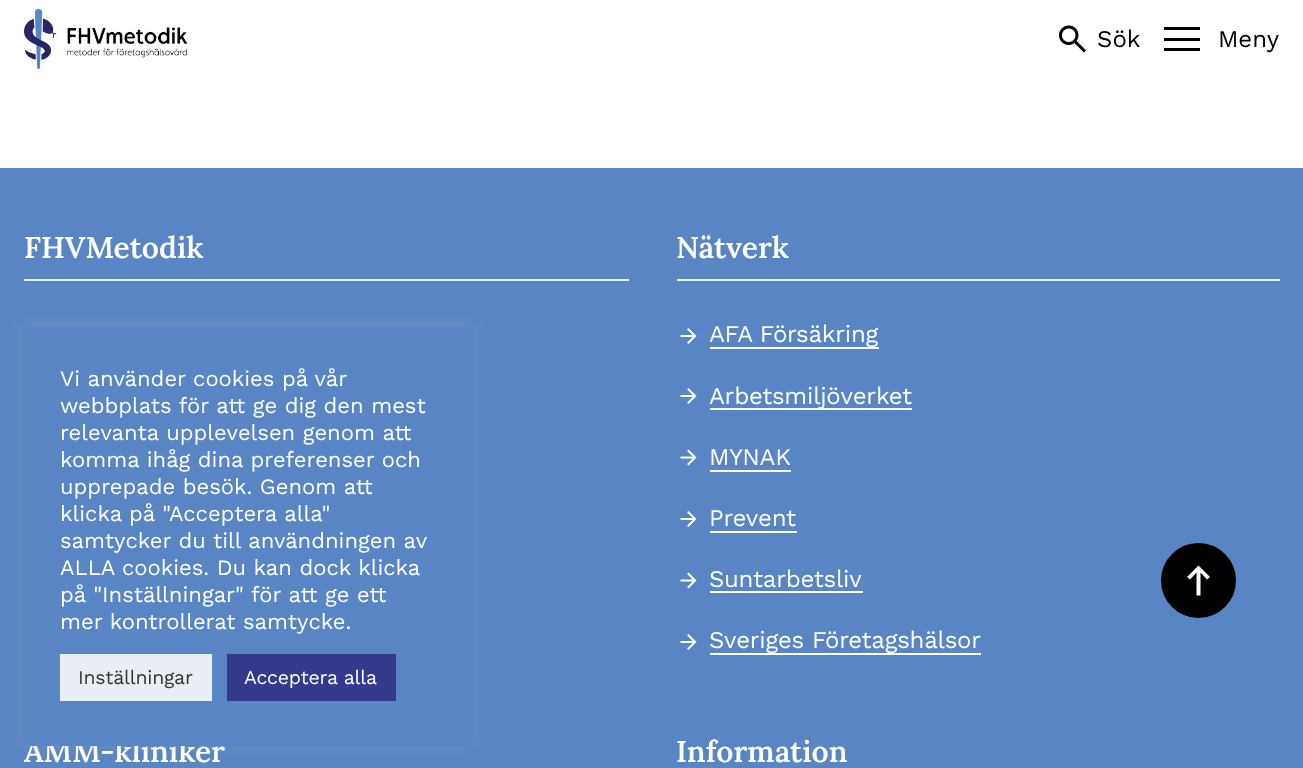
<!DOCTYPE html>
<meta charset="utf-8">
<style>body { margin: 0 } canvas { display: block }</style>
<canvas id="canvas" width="1303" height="768"></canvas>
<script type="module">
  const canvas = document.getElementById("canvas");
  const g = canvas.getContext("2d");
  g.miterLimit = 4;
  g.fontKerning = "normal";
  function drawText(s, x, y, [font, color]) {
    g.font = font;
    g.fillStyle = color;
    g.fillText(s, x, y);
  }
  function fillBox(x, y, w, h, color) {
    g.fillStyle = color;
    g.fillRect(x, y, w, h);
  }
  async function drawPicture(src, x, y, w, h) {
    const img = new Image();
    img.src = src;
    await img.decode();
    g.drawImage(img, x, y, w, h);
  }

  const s1 = ["24px Work Sans", "#000000"];
  const s2 = ["600 30px Lora", "#FFFFFF"];
  const s3 = ["24px Work Sans", "#FFFFFF"];
  const s4 = ["22px Work Sans", "#FFFFFF"];
  const s5 = ["19.5px Work Sans", "#333333"];
  const s6 = ["19.5px Work Sans", "#FFFFFF"];

  fillBox(0, 0, 1303, 768, "#FFFFFF");
  await drawPicture("pic1.png", 24, 9, 164, 60);
  await drawPicture("pic2.png", 1059, 25, 27, 28);
  drawText("Sök", 1097, 47, s1);
  fillBox(1164, 27, 36, 3, "#000000");
  fillBox(1164, 38, 36, 3, "#000000");
  fillBox(1164, 48, 36, 3, "#000000");
  drawText("Meny", 1218, 47, s1);
  fillBox(0, 168, 1303, 600, "#5A85C5");
  fillBox(24, 279, 605, 2, "#E9EEF5");
  drawText("FHVMetodik", 24, 258, s2);
  fillBox(677, 279, 603, 2, "#E9EEF5");
  drawText("Nätverk", 676, 258, s2);
  await drawPicture("pic3.png", 680, 328, 17, 16);
  fillBox(710, 347, 169, 2, "#FFFFFF");
  g.letterSpacing = "-0.25px";
  drawText("AFA Försäkring", 709, 342, s3);
  await drawPicture("pic3.png", 680, 388, 17, 16);
  fillBox(710, 408, 202, 2, "#FFFFFF");
  drawText("Arbetsmiljöverket", 709, 404, s3);
  await drawPicture("pic4.png", 680, 449, 17, 17);
  drawText("MYNAK", 709, 465, s3);
  fillBox(710, 470, 81, 2, "#FFFFFF");
  await drawPicture("pic3.png", 680, 511, 17, 16);
  drawText("Prevent", 709, 526, s3);
  fillBox(710, 531, 87, 2, "#FFFFFF");
  await drawPicture("pic4.png", 680, 572, 17, 17);
  drawText("Suntarbetsliv", 709, 587, s3);
  fillBox(710, 591, 153, 2, "#FFFFFF");
  await drawPicture("pic3.png", 680, 634, 17, 16);
  fillBox(710, 653, 271, 2, "#FFFFFF");
  drawText("Sveriges Företagshälsor", 709, 648, s3);
  g.letterSpacing = "0px";
  drawText("AMM-kliniker", 24, 762, s2);
  drawText("Information", 676, 762, s2);
  g.fillStyle = "#000000";
  g.beginPath();
  g.arc(1198.5, 580.5, 36, 0, Math.PI * 2);
  g.fill();
  g.strokeStyle = "#000000";
  g.lineWidth = 3;
  g.stroke();
  g.fillStyle = "#FFFFFF";
  g.beginPath();
  g.moveTo(1210, 577);
  g.lineTo(1207, 579.5);
  g.lineTo(1200.5, 572.5);
  g.lineTo(1200.5, 595.5);
  g.lineTo(1196.5, 595.5);
  g.lineTo(1196.5, 572.5);
  g.lineTo(1190, 579.5);
  g.lineTo(1187, 577);
  g.lineTo(1198.5, 565.5);
  g.closePath();
  g.fill();
  g.fillStyle = "rgba(172, 171, 171, 0.3)";
  g.filter = "blur(7.5px)";
  g.beginPath();
  g.rect(23, 326, 450, 418);
  g.fill();
  g.filter = "none";
  fillBox(23, 327, 450, 419, "#5A85C5");
  drawText("Vi använder cookies på vår", 60, 386, s4);
  drawText("webbplats för att ge dig den mest", 60, 413, s4);
  drawText("relevanta upplevelsen genom att", 60, 440, s4);
  drawText("komma ihåg dina preferenser och", 60, 467, s4);
  drawText("upprepade besök. Genom att", 60, 494, s4);
  drawText("klicka på \"Acceptera alla\"", 60, 521, s4);
  drawText("samtycker du till användningen av", 60, 548, s4);
  drawText("ALLA cookies. Du kan dock klicka", 60, 575, s4);
  drawText("på \"Inställningar\" för att ge ett", 60, 602, s4);
  drawText("mer kontrollerat samtycke.", 60, 629, s4);
  fillBox(60, 654, 152, 47, "#E9EEF5");
  g.letterSpacing = "-0.25px";
  drawText("Inställningar", 78, 684, s5);
  fillBox(227, 654, 169, 47, "#34398C");
  drawText("Acceptera alla", 244, 684, s6);
</script>
